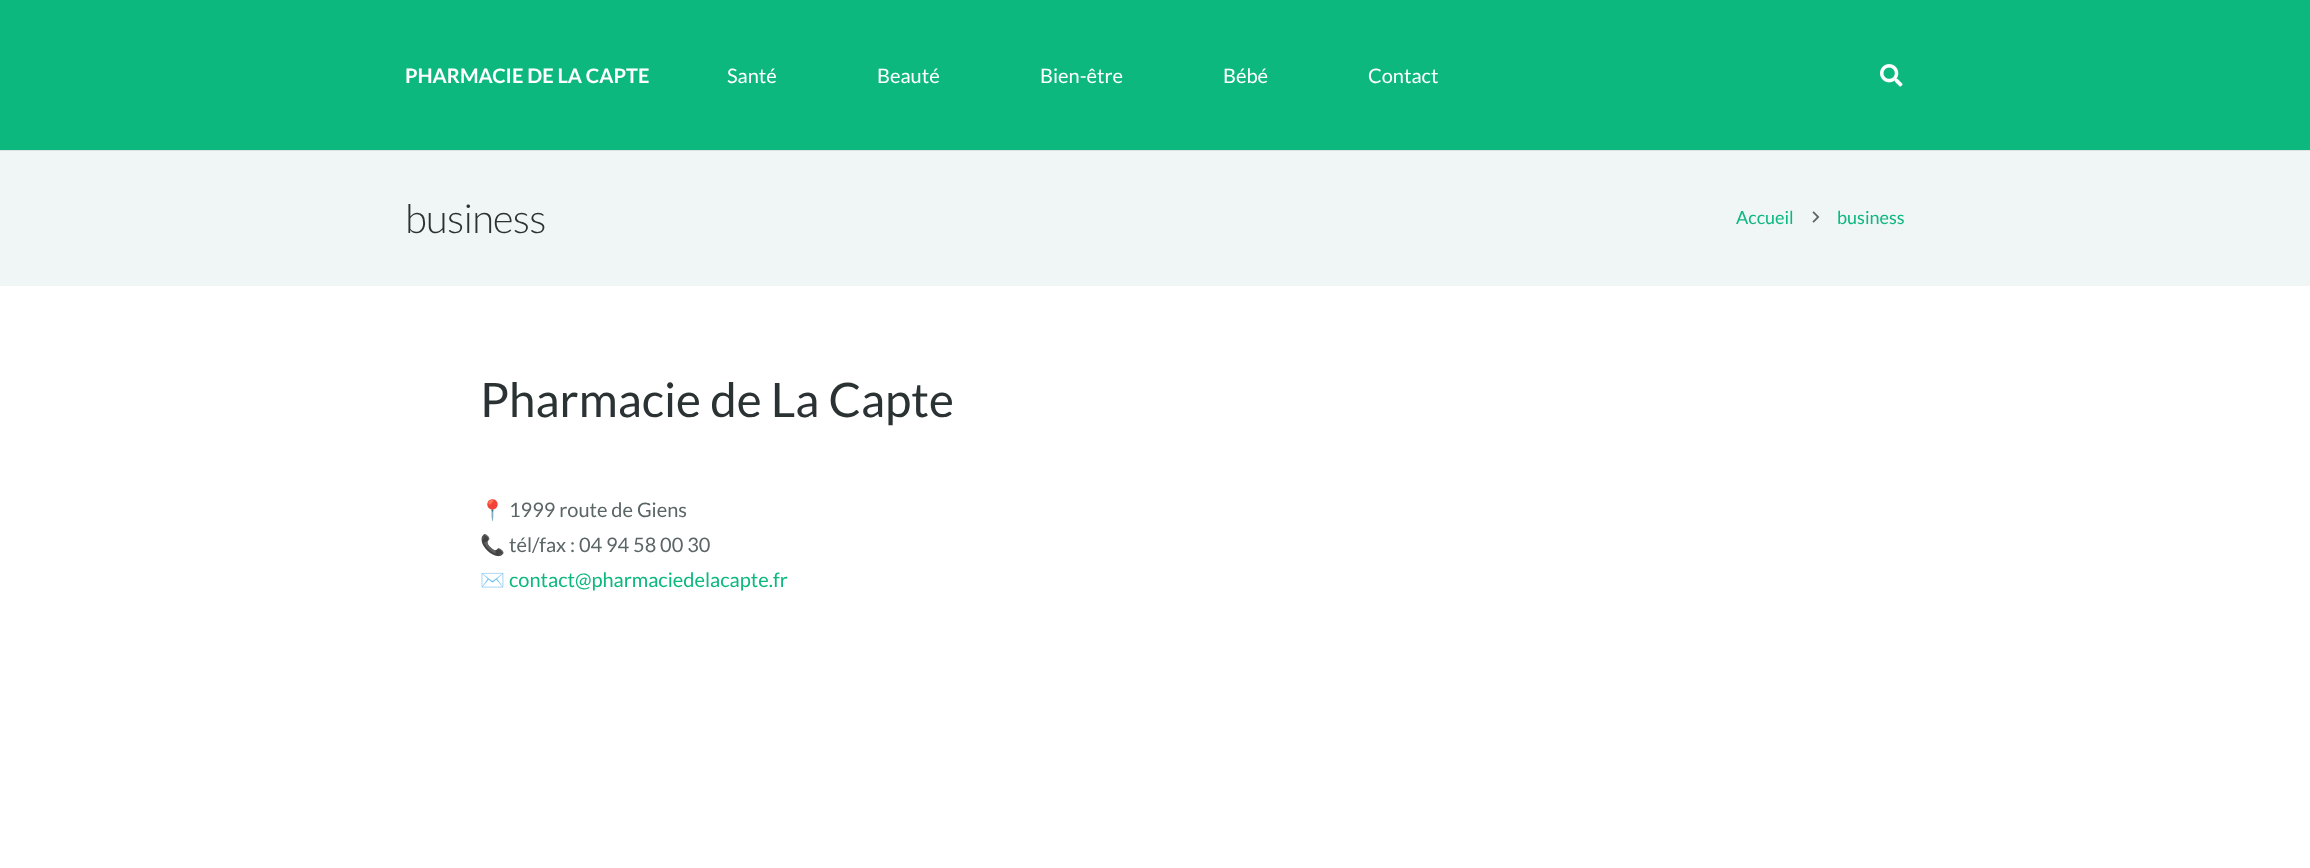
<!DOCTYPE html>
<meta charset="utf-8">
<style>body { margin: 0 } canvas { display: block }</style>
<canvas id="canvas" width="2310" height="868"></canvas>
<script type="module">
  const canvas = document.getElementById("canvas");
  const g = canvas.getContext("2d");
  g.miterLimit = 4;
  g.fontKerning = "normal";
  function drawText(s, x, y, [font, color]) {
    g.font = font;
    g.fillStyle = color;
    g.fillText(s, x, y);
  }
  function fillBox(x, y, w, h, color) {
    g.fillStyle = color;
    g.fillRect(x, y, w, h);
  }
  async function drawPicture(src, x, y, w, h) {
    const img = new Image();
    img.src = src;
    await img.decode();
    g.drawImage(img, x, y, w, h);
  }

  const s1 = ["bold 20px Lato", "#FFFFFF"];
  const s2 = ["20px Lato", "#FFFFFF"];
  const s3 = ["300 40px Lato", "#2B3233"];
  const s4 = ["18px Lato", "#0DB87F"];
  const s5 = ["47.5px Lato", "#2B3233"];
  const s6 = ["20px Noto Color Emoji", "#5C6566"];
  const s7 = ["20px Lato", "#5C6566"];
  const s8 = ["20px Lato", "#0DB87F"];

  fillBox(0, 0, 2310, 868, "#FFFFFF");
  fillBox(0, 150, 2310, 1, "#DDE1E1");
  fillBox(0, 0, 2310, 150, "#0DB87F");
  drawText("PHARMACIE DE LA CAPTE", 405, 83, s1);
  drawText("Santé", 727, 83, s2);
  drawText("Beauté", 877, 83, s2);
  drawText("Bien-être", 1040, 83, s2);
  drawText("Bébé", 1223, 83, s2);
  drawText("Contact", 1368, 83, s2);
  await drawPicture("pic1.png", 1880, 64, 23, 23);
  fillBox(0, 151, 2310, 135, "#F0F5F5");
  g.letterSpacing = "-0.75px";
  drawText("business", 405, 233, s3);
  g.letterSpacing = "0px";
  drawText("Accueil", 1736, 224, s4);
  await drawPicture("pic2.png", 1812, 211, 8, 12);
  drawText("business", 1837, 224, s4);
  drawText("Pharmacie de La Capte", 480, 417, s5);
  drawText("📍", 480, 517, s6);
  drawText("1999 route de Giens", 509, 517, s7);
  drawText("📞", 480, 552, s6);
  drawText("tél/fax : 04 94 58 00 30", 509, 552, s7);
  drawText("✉️", 480, 587, s6);
  drawText("contact@pharmaciedelacapte.fr", 509, 587, s8);
</script>
